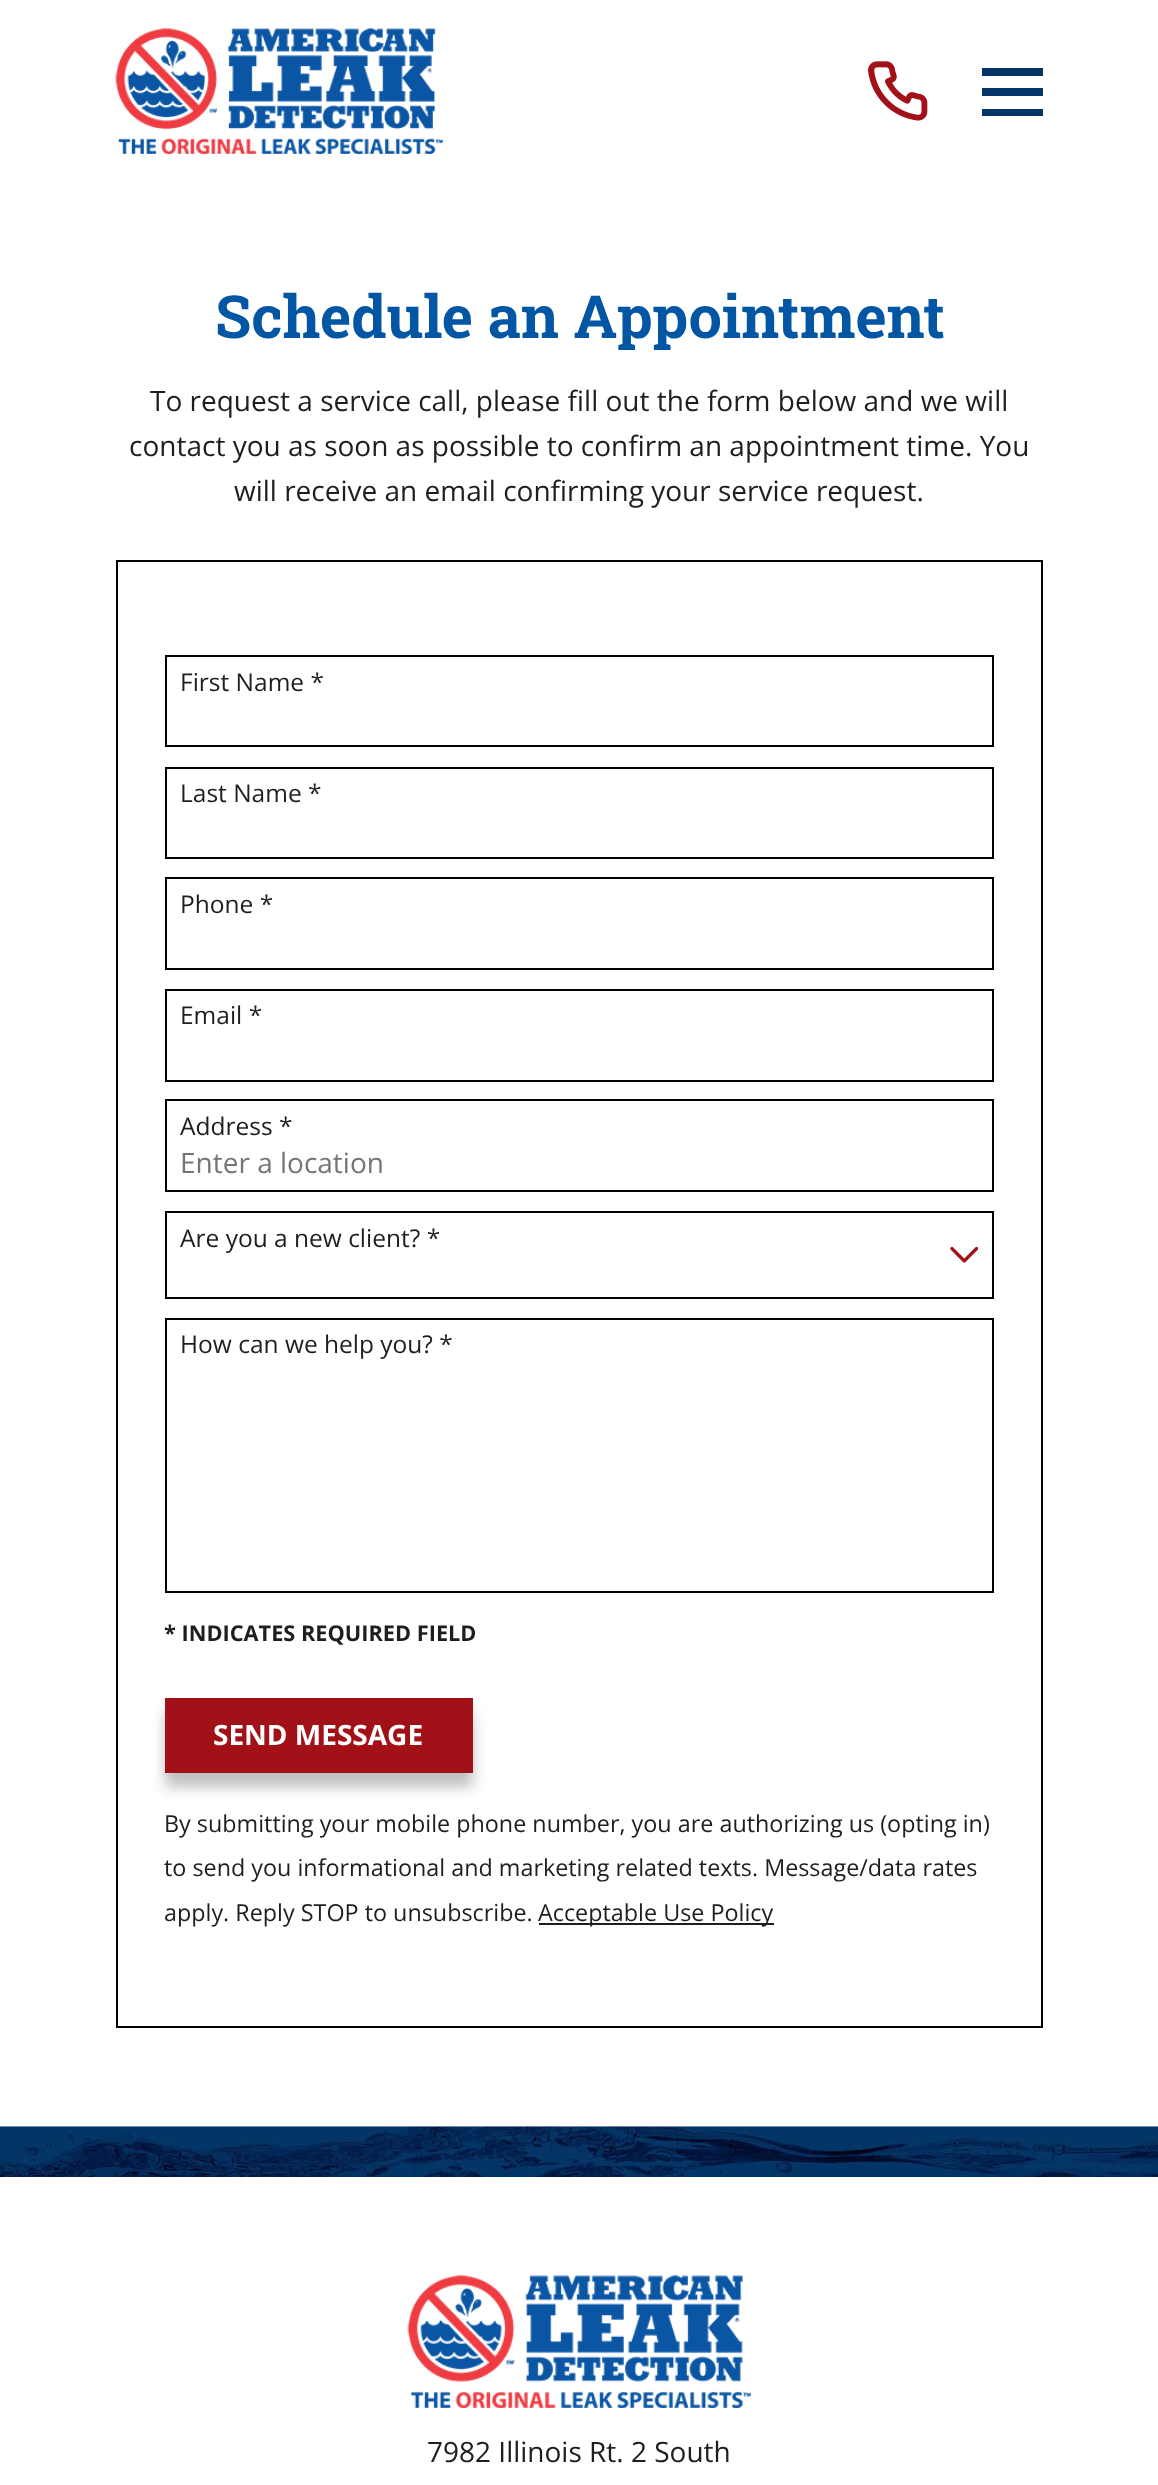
<!DOCTYPE html>
<meta charset="utf-8">
<style>body { margin: 0 } canvas { display: block }</style>
<canvas id="canvas" width="1158" height="2485"></canvas>
<script type="module">
  const canvas = document.getElementById("canvas");
  const g = canvas.getContext("2d");
  g.miterLimit = 4;
  g.fontKerning = "normal";
  function drawText(s, x, y, [font, color]) {
    g.font = font;
    g.fillStyle = color;
    g.fillText(s, x, y);
  }
  function fillBox(x, y, w, h, color) {
    g.fillStyle = color;
    g.fillRect(x, y, w, h);
  }
  async function drawPicture(src, x, y, w, h) {
    const img = new Image();
    img.src = src;
    await img.decode();
    g.drawImage(img, x, y, w, h);
  }

  const s1 = ["bold 59.4px Roboto Slab", "#0356A3"];
  const s2 = ["28px Open Sans", "#1E1E1E"];
  const s3 = ["24.5px Open Sans", "#1E1E1E"];
  const s4 = ["28px Open Sans", "#757575"];
  const s5 = ["bold 21.75px Open Sans", "#1E1E1E"];
  const s6 = ["bold 28px Open Sans", "#FFFFFF"];
  const s7 = ["23.35px Open Sans", "#1E1E1E"];

  fillBox(0, 0, 1158, 2485, "#FFFFFF");
  await drawPicture("pic1.png", 115, 28, 328, 126);
  await drawPicture("pic2.png", 868, 61, 60, 60);
  g.fillStyle = "#043767";
  g.beginPath();
  g.moveTo(982, 68);
  g.lineTo(982, 76);
  g.lineTo(1043, 76);
  g.lineTo(1043, 68);
  g.closePath();
  g.moveTo(982, 88);
  g.lineTo(982, 96);
  g.lineTo(1043, 96);
  g.lineTo(1043, 88);
  g.closePath();
  g.moveTo(982, 109);
  g.lineTo(982, 116);
  g.lineTo(1043, 116);
  g.lineTo(1043, 109);
  g.closePath();
  g.fill();
  drawText("Schedule an Appointment", 215, 338, s1);
  drawText("To request a service call, please fill out the form below and we will", 150, 411, s2);
  drawText("contact you as soon as possible to confirm an appointment time. You", 129, 456, s2);
  drawText("will receive an email confirming your service request.", 234, 501, s2);
  g.strokeStyle = "#000000";
  g.lineWidth = 2;
  g.strokeRect(117, 561, 925, 1466);
  g.strokeRect(166, 656, 827, 90);
  drawText("First Name *", 180, 691, s3);
  g.strokeRect(166, 768, 827, 90);
  drawText("Last Name *", 180, 802, s3);
  g.strokeRect(166, 878, 827, 91);
  drawText("Phone *", 180, 913, s3);
  g.strokeRect(166, 990, 827, 91);
  drawText("Email *", 180, 1024, s3);
  g.strokeRect(166, 1100, 827, 91);
  drawText("Address *", 180, 1135, s3);
  drawText("Enter a location", 180, 1173, s4);
  g.strokeRect(166, 1212, 827, 86);
  drawText("Are you a new client? *", 180, 1247, s3);
  await drawPicture("pic3.png", 950, 1246, 28, 17);
  g.strokeRect(166, 1319, 827, 273);
  drawText("How can we help you? *", 180, 1353, s3);
  drawText("* INDICATES REQUIRED FIELD", 164, 1641, s5);
  g.fillStyle = "rgba(0, 0, 0, 0.25)";
  g.filter = "blur(7px)";
  g.beginPath();
  g.rect(165, 1712, 308, 75);
  g.fill();
  g.filter = "none";
  fillBox(165, 1698, 308, 75, "#A21117");
  drawText("SEND MESSAGE", 213, 1745, s6);
  drawText("By submitting your mobile phone number, you are authorizing us (opting in)", 164, 1832, s7);
  drawText("to send you informational and marketing related texts. Message/data rates", 164, 1876, s7);
  drawText("apply. Reply STOP to unsubscribe.", 164, 1921, s7);
  fillBox(539, 1923, 235, 2, "#1E1E1E");
  drawText("Acceptable Use Policy", 538, 1921, s7);
  await drawPicture("pic4.png", 0, 2126, 1158, 51);
  await drawPicture("pic5.png", 407, 2275, 344, 133);
  drawText("7982 Illinois Rt. 2 South", 427, 2462, s2);
</script>
